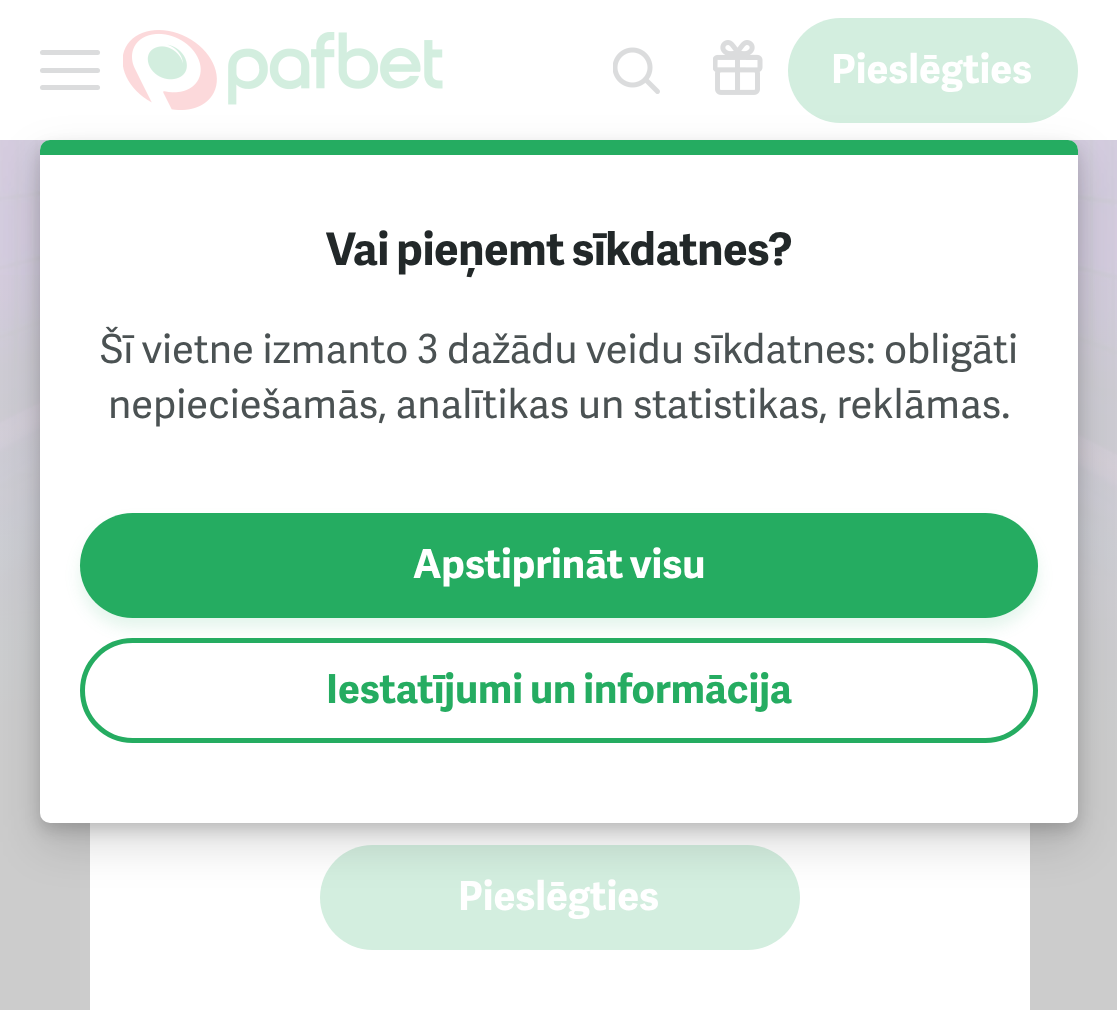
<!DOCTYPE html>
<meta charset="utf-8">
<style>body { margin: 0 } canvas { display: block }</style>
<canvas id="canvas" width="1117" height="1010"></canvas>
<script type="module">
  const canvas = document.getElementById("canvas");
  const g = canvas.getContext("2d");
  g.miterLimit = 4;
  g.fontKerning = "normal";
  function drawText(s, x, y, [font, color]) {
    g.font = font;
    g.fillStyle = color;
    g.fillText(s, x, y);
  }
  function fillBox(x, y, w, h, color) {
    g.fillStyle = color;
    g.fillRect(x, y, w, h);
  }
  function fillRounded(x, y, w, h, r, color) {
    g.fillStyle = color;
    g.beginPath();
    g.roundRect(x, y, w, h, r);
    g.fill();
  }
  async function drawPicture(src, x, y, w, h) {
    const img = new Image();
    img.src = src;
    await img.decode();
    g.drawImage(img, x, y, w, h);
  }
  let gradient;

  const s1 = ["bold 40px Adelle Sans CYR", "#FFFFFF"];
  const s2 = ["bold 45px Adelle Sans CYR", "#222829"];
  const s3 = ["40px Adelle Sans CYR", "#4B5253"];
  const s4 = ["bold 40px Adelle Sans CYR", "#25AC61"];

  fillBox(0, 0, 1117, 1010, "#CCCCCC");
  fillBox(0, 0, 1117, 140, "#FFFFFF");
  fillRounded(40, 50, 60, 5, 2.5, "#DBDCDD");
  fillRounded(40, 68, 60, 5, 2.5, "#DBDCDD");
  fillRounded(40, 85, 60, 5, 2.5, "#DBDCDD");
  await drawPicture("pic1.png", 123, 30, 320, 80);
  await drawPicture("pic2.png", 613, 47, 47, 47);
  await drawPicture("pic3.png", 713, 40, 50, 55);
  fillRounded(788, 18, 290, 105, 52.5, "#D3EEDF");
  drawText("Pieslēgties", 831, 83, s1);
  await drawPicture("pic4.png", 0, 140, 1117, 632);
  gradient = g.createLinearGradient(559, 775, 559, 220);
  gradient.addColorStop(0, "#CCCCCC");
  gradient.addColorStop(1, "rgba(204, 204, 204, 0)");
  g.fillStyle = gradient;
  g.fillRect(0, 275, 1117, 497);
  fillBox(90, 823, 940, 187, "#FFFFFF");
  fillRounded(320, 845, 480, 105, 52.5, "#D3EEDF");
  drawText("Pieslēgties", 458, 910, s1);
  g.fillStyle = "rgba(0, 0, 0, 0.15)";
  g.filter = "blur(7.5px)";
  g.beginPath();
  g.roundRect(40, 148, 1038, 682, 10);
  g.fill();
  g.filter = "none";
  g.filter = "blur(22.5px)";
  g.beginPath();
  g.roundRect(40, 160, 1038, 683, 10);
  g.fill();
  g.filter = "none";
  fillRounded(40, 140, 1038, 683, 10, "#FFFFFF");
  g.fillStyle = "#25AC61";
  g.beginPath();
  g.roundRect(40, 140, 1038, 15, [10, 10, 0, 0]);
  g.fill();
  g.letterSpacing = "-0.45px";
  drawText("Vai pieņemt sīkdatnes?", 326, 265, s2);
  g.letterSpacing = "0px";
  drawText("Šī vietne izmanto 3 dažādu veidu sīkdatnes: obligāti", 100, 363, s3);
  drawText("nepieciešamās, analītikas un statistikas, reklāmas.", 108, 418, s3);
  g.fillStyle = "rgba(37, 172, 97, 0.12)";
  g.filter = "blur(7.5px)";
  g.beginPath();
  g.roundRect(80, 523, 958, 105, 52.5);
  g.fill();
  g.filter = "none";
  fillRounded(80, 513, 958, 105, 52.5, "#25AC61");
  drawText("Apstiprināt visu", 413, 578, s1);
  g.beginPath();
  g.roundRect(82.5, 640.5, 953, 100, 50);
  g.strokeStyle = "#25AC61";
  g.lineWidth = 5;
  g.stroke();
  drawText("Iestatījumi un informācija", 326, 703, s4);
</script>
